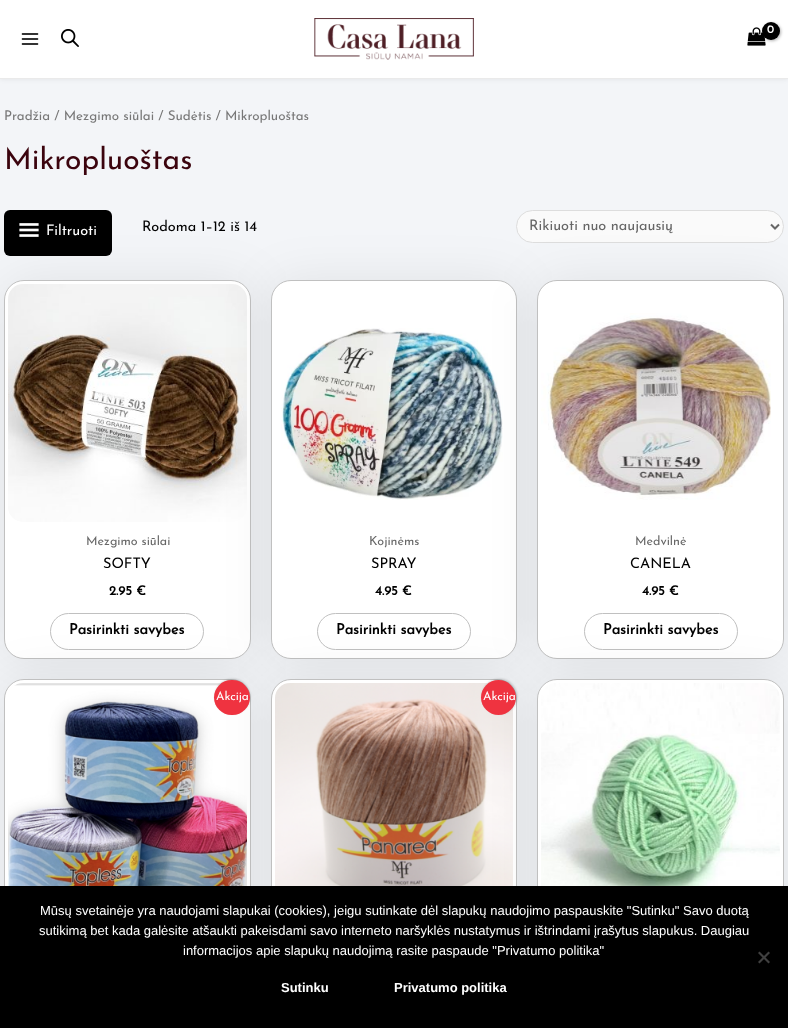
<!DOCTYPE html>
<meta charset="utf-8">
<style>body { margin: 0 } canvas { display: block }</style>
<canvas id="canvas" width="788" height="1028"></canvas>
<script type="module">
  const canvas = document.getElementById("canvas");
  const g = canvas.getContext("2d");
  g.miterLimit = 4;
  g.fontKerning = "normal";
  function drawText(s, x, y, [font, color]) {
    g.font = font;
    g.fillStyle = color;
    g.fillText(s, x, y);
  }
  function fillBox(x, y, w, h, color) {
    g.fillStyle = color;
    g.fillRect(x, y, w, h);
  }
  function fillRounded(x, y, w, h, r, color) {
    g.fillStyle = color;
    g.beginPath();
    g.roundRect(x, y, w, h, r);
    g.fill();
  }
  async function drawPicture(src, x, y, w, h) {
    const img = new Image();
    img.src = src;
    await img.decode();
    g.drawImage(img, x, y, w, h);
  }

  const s1 = ["bold 11px Josefin Sans", "#FFFFFF"];
  const s2 = ["100 13.4px Josefin Sans", "#777777"];
  const s3 = ["100 30px Josefin Sans", "#3B040E"];
  const s4 = ["100 14.5px Josefin Sans", "#FFFFFF"];
  const s5 = ["100 14.5px Josefin Sans", "#000000"];
  const s6 = ["100 14.5px Josefin Sans", "#666666"];
  const s7 = ["100 12.5px Josefin Sans", "#666666"];
  const s8 = ["bold 13px Josefin Sans", "#000000"];
  const s9 = ["bold 14.5px Josefin Sans", "#000000"];
  const s10 = ["100 12px Josefin Sans", "#FFFFFF"];
  const s11 = ["13px Liberation Sans", "#FFFFFF"];
  const s12 = ["bold 13px Liberation Sans", "#FFFFFF"];

  fillBox(0, 0, 788, 1028, "#F3F5F8");
  g.fillStyle = "rgba(0, 0, 0, 0.08)";
  g.filter = "blur(2.5px)";
  g.beginPath();
  g.rect(0, 0, 788, 79);
  g.fill();
  g.filter = "none";
  fillBox(0, 0, 788, 78, "#FFFFFF");
  fillBox(0, 78, 788, 1, "#EAEAEA");
  await drawPicture("pic1.png", 21, 33, 18, 12);
  await drawPicture("pic2.png", 61, 29, 18, 18);
  await drawPicture("pic3.png", 314, 18, 160, 42);
  await drawPicture("pic4.png", 747, 27, 19, 19);
  g.fillStyle = "rgba(0, 0, 0, 0.3)";
  g.filter = "blur(1.5px)";
  g.beginPath();
  g.roundRect(763, 23, 18, 18, 9);
  g.fill();
  g.filter = "none";
  g.fillStyle = "#000000";
  g.beginPath();
  g.arc(771, 31, 9, 0, Math.PI * 2);
  g.fill();
  drawText("0", 767, 33, s1);
  drawText("Pradžia / Mezgimo siūlai / Sudėtis / Mikropluoštas", 4, 120, s2);
  drawText("Mikropluoštas", 4, 169, s3);
  fillRounded(4, 210, 108, 46, 6, "#000000");
  await drawPicture("pic5.png", 19, 223, 20, 14);
  drawText("Filtruoti", 46, 235, s4);
  drawText("Rodoma 1–12 iš 14", 142, 231, s5);
  g.fillStyle = "#FAFAFA";
  g.beginPath();
  g.roundRect(516.5, 210.5, 267, 32, 16);
  g.fill();
  g.strokeStyle = "#DDDDDD";
  g.stroke();
  g.beginPath();
  g.moveTo(771, 224.5);
  g.lineTo(775, 228.5);
  g.lineTo(779, 224.5);
  g.strokeStyle = "#666666";
  g.lineWidth = 2;
  g.stroke();
  drawText("Rikiuoti nuo naujausių", 529, 230, s6);
  g.fillStyle = "rgba(0, 0, 0, 0.08)";
  g.filter = "blur(25px)";
  g.beginPath();
  g.roundRect(5, 281, 247, 379, 20);
  g.fill();
  g.filter = "none";
  g.fillStyle = "#FFFFFF";
  g.beginPath();
  g.roundRect(4.5, 280.5, 246, 378, 19.5);
  g.fill();
  g.strokeStyle = "#C0C0C0";
  g.lineWidth = 1;
  g.stroke();
  await drawPicture("pic6.png", 8, 284, 239, 238);
  drawText("Mezgimo siūlai", 86, 545, s7);
  drawText("SOFTY", 103, 568, s5);
  drawText("2.95 €", 109, 595, s8);
  g.beginPath();
  g.roundRect(50.5, 613.5, 153, 36, 18);
  g.stroke();
  drawText("Pasirinkti savybes", 69, 634, s9);
  g.fillStyle = "rgba(0, 0, 0, 0.08)";
  g.filter = "blur(25px)";
  g.beginPath();
  g.roundRect(272, 281, 246, 379, 20);
  g.fill();
  g.filter = "none";
  g.fillStyle = "#FFFFFF";
  g.beginPath();
  g.roundRect(271.5, 280.5, 245, 378, 19.5);
  g.fill();
  g.stroke();
  await drawPicture("pic7.png", 281, 328, 222, 172);
  drawText("Kojinėms", 369, 545, s7);
  drawText("SPRAY", 371, 568, s5);
  drawText("4.95 €", 375, 595, s8);
  g.beginPath();
  g.roundRect(317.5, 613.5, 153, 36, 18);
  g.stroke();
  drawText("Pasirinkti savybes", 336, 634, s9);
  g.fillStyle = "rgba(0, 0, 0, 0.08)";
  g.filter = "blur(25px)";
  g.beginPath();
  g.roundRect(538, 281, 247, 379, 20);
  g.fill();
  g.filter = "none";
  g.fillStyle = "#FFFFFF";
  g.beginPath();
  g.roundRect(537.5, 280.5, 246, 378, 19.5);
  g.fill();
  g.stroke();
  await drawPicture("pic8.png", 541, 313, 230, 187);
  drawText("Medvilnė", 635, 545, s7);
  drawText("CANELA", 630, 568, s5);
  drawText("4.95 €", 642, 595, s8);
  g.beginPath();
  g.roundRect(584.5, 613.5, 153, 36, 18);
  g.stroke();
  drawText("Pasirinkti savybes", 603, 634, s9);
  g.fillStyle = "rgba(0, 0, 0, 0.08)";
  g.filter = "blur(25px)";
  g.beginPath();
  g.roundRect(5, 680, 247, 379, 20);
  g.fill();
  g.filter = "none";
  g.fillStyle = "#FFFFFF";
  g.beginPath();
  g.roundRect(4.5, 679.5, 246, 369, 19.5);
  g.fill();
  g.stroke();
  await drawPicture("pic9.png", 8, 683, 239, 203);
  g.fillStyle = "rgba(0, 0, 0, 0.2)";
  g.filter = "blur(1px)";
  g.beginPath();
  g.roundRect(215, 679, 35, 35, 17.5);
  g.fill();
  g.filter = "none";
  g.fillStyle = "rgba(0, 0, 0, 0.08)";
  g.filter = "blur(25px)";
  g.beginPath();
  g.roundRect(272, 680, 246, 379, 20);
  g.fill();
  g.filter = "none";
  fillRounded(214, 680, 36, 35, 17.5, "#EF3340");
  drawText("Akcija", 216, 700, s10);
  g.beginPath();
  g.roundRect(271.5, 679.5, 245, 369, 19.5);
  g.fill();
  g.stroke();
  await drawPicture("pic11.png", 275, 683, 238, 203);
  g.fillStyle = "rgba(0, 0, 0, 0.08)";
  g.filter = "blur(25px)";
  g.beginPath();
  g.roundRect(538, 680, 247, 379, 20);
  g.fill();
  g.filter = "none";
  g.fillStyle = "#FFFFFF";
  g.beginPath();
  g.roundRect(537.5, 679.5, 246, 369, 19.5);
  g.fill();
  g.stroke();
  await drawPicture("pic10.png", 541, 683, 239, 203);
  g.fillStyle = "rgba(0, 0, 0, 0.2)";
  g.filter = "blur(1px)";
  g.beginPath();
  g.roundRect(482, 679, 35, 35, 17.5);
  g.fill();
  g.filter = "none";
  g.fillStyle = "#EF3340";
  g.beginPath();
  g.arc(498.5, 697.5, 17.5, 0, Math.PI * 2);
  g.fill();
  drawText("Akcija", 483, 700, s10);
  fillBox(0, 886, 788, 142, "#000000");
  drawText("Mūsų svetainėje yra naudojami slapukai (cookies), jeigu sutinkate dėl slapukų naudojimo paspauskite \"Sutinku\" Savo duotą", 40, 915, s11);
  drawText("sutikimą bet kada galėsite atšaukti pakeisdami savo interneto naršyklės nustatymus ir ištrindami įrašytus slapukus. Daugiau", 39, 935, s11);
  drawText("informacijos apie slapukų naudojimą rasite paspaude \"Privatumo politika\"", 183, 955, s11);
  g.fillStyle = "#404040";
  g.beginPath();
  g.moveTo(768.5, 951.5);
  g.lineTo(770, 953);
  g.lineTo(759.5, 963.5);
  g.lineTo(758, 962);
  g.closePath();
  g.fill();
  g.beginPath();
  g.moveTo(758, 953);
  g.lineTo(759.5, 951.5);
  g.lineTo(770, 962);
  g.lineTo(768.5, 963.5);
  g.closePath();
  g.fill();
  drawText("Sutinku", 281, 992, s12);
  drawText("Privatumo politika", 394, 992, s12);
</script>
